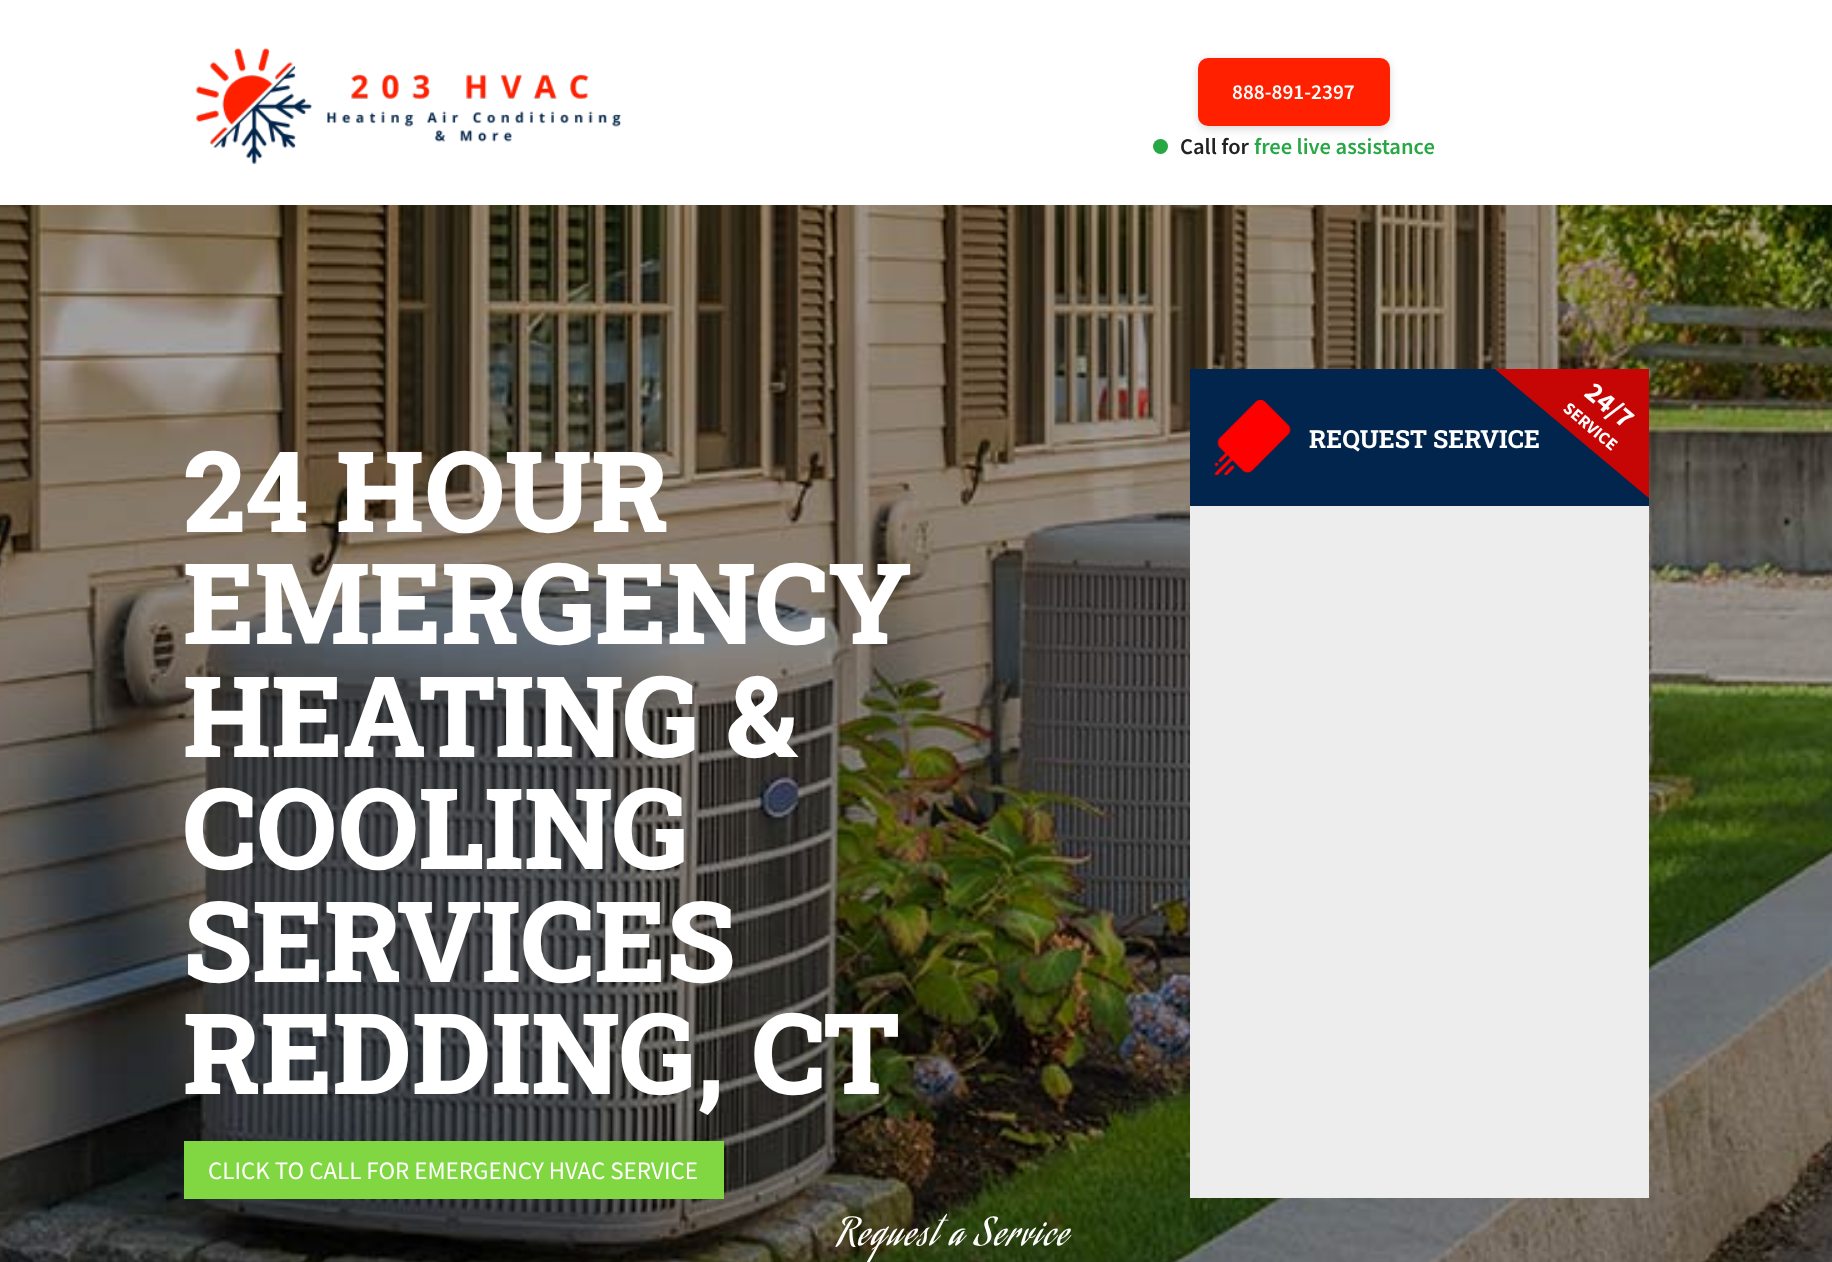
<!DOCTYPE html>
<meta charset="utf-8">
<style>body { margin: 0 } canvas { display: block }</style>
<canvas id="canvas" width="1832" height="1262"></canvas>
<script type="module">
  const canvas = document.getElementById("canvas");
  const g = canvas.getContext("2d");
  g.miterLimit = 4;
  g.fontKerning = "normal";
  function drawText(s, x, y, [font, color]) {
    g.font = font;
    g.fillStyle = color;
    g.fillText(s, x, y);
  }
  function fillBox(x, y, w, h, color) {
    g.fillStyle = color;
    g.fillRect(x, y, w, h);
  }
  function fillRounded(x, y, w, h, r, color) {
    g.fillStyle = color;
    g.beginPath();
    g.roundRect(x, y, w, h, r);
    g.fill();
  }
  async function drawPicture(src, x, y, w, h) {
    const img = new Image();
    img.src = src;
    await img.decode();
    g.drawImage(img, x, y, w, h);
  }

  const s1 = ["600 21.25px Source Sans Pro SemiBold", "#FFFFFF"];
  const s2 = ["600 22.5px Source Sans Pro SemiBold", "#222222"];
  const s3 = ["600 22.5px Source Sans Pro SemiBold", "#28A745"];
  const s4 = ["bold 25px Roboto Slab", "#FFFFFF"];
  const s5 = ["800 112.5px Roboto Slab", "#FFFFFF"];
  const s6 = ["25px Source Sans Pro", "#FFFFFF"];
  const s7 = ["37.5px Aguafina Script", "#FFFFFF"];

  fillBox(0, 0, 1832, 1262, "#FFFFFF");
  await drawPicture("pic1.png", 196, 48, 426, 116);
  g.fillStyle = "rgba(0, 0, 0, 0.15)";
  g.filter = "blur(4px)";
  g.beginPath();
  g.roundRect(1198, 60, 192, 69, 10);
  g.fill();
  g.filter = "none";
  fillRounded(1198, 58, 192, 68, 10, "#FF2000");
  drawText("888-891-2397", 1232, 99, s1);
  g.fillStyle = "#28A745";
  g.beginPath();
  g.arc(1160.5, 146.5, 7.5, 0, Math.PI * 2);
  g.fill();
  drawText("Call for", 1180, 154, s2);
  drawText("free live assistance", 1254, 154, s3);
  await drawPicture("pic2.png", 0, 205, 1832, 1057);
  fillBox(1190, 369, 459, 137, "#01254C");
  await drawPicture("pic3.png", 1214, 400, 77, 75);
  drawText("REQUEST SERVICE", 1309, 448, s4);
  g.save();
  g.beginPath();
  g.rect(1190, 369, 459, 829);
  g.clip();
  g.fillStyle = "#C60505";
  g.beginPath();
  g.moveTo(1548, 283);
  g.lineTo(1740, 444);
  g.lineTo(1675, 520);
  g.lineTo(1484, 360);
  g.closePath();
  g.fill();
  g.restore();
  g.font = "bold 28px Source Sans Pro";
  g.save();
  g.translate(1583, 395);
  g.rotate(40 * Math.PI / 180);
  g.fillText("24/7", 0, 0);
  g.restore();
  g.font = "bold 17.5px Source Sans Pro";
  g.save();
  g.translate(1562, 410);
  g.rotate(40 * Math.PI / 180);
  g.fillText("SERVICE", 0, 0);
  g.restore();
  fillBox(1190, 506, 459, 692, "#EDEDED");
  drawText("24 HOUR", 183, 532, s5);
  drawText("EMERGENCY", 183, 644, s5);
  drawText("HEATING &", 183, 757, s5);
  drawText("COOLING", 183, 869, s5);
  drawText("SERVICES", 183, 982, s5);
  drawText("REDDING, CT", 183, 1094, s5);
  fillBox(184, 1141, 540, 58, "#81D742");
  drawText("CLICK TO CALL FOR EMERGENCY HVAC SERVICE", 208, 1179, s6);
  g.letterSpacing = "2.5px";
  drawText("Request a Service", 838, 1245, s7);
</script>
